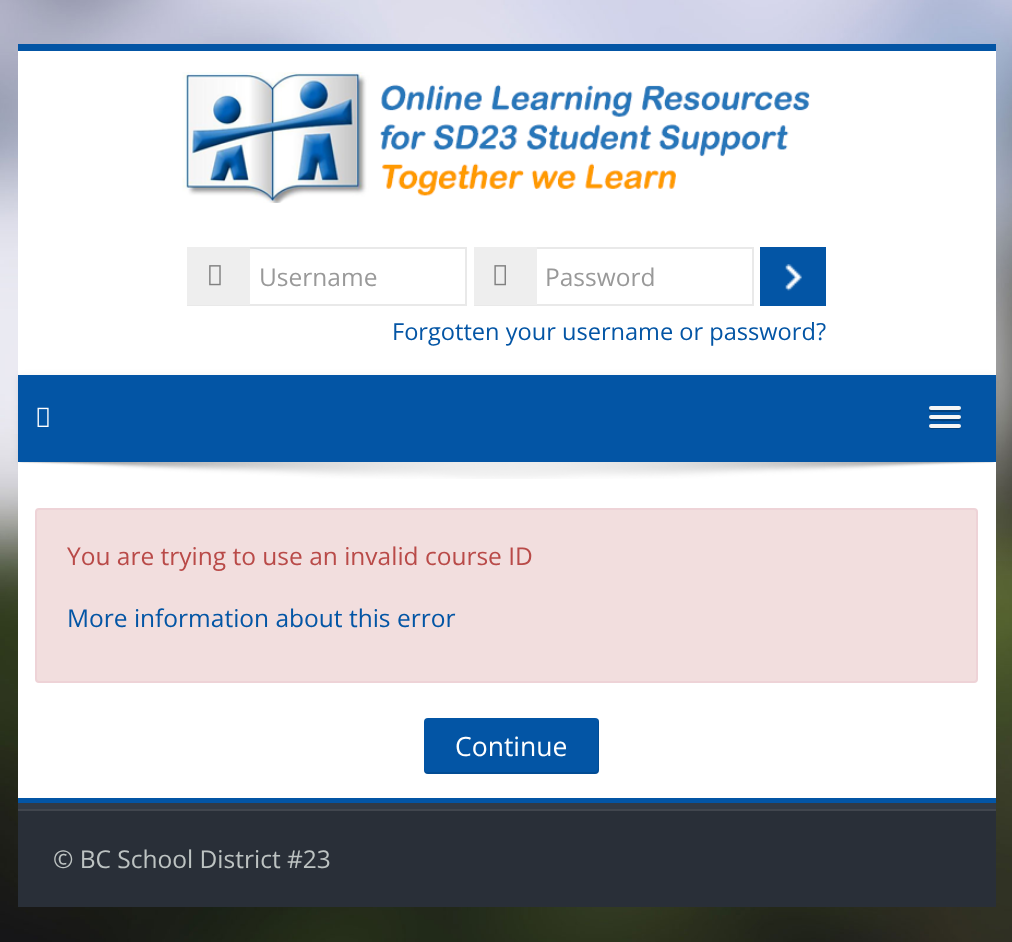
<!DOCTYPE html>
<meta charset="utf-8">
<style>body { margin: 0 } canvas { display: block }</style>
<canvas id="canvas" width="1012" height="942"></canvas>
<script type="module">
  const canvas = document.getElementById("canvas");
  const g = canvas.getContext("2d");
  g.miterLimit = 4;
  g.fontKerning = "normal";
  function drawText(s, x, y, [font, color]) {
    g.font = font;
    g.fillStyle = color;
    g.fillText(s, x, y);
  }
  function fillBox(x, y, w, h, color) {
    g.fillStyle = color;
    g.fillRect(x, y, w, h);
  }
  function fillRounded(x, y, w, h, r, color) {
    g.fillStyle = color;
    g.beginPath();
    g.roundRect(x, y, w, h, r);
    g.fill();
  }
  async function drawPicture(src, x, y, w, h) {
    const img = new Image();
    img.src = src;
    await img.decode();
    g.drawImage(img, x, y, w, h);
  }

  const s1 = ["24.5px Open Sans", "#999999"];
  const s2 = ["23.6px Open Sans", "#0355A5"];
  const s3 = ["24.5px Open Sans", "#B94A48"];
  const s4 = ["24.5px Open Sans", "#0355A5"];
  const s5 = ["26.5px Open Sans", "#FFFFFF"];
  const s6 = ["24.5px Open Sans", "#BDC3C2"];

  fillBox(0, 0, 1012, 942, "#FFFFFF");
  await drawPicture("pic1.png", 0, 0, 1012, 942);
  fillBox(18, 44, 978, 7, "#0355A5");
  fillBox(18, 51, 978, 324, "#FFFFFF");
  await drawPicture("pic2.png", 182, 72, 628, 131);
  g.strokeStyle = "#E9E9E9";
  g.lineWidth = 2;
  g.strokeRect(188, 248, 278, 57);
  fillBox(187, 247, 63, 58, "#EEEEEE");
  await drawPicture("pic3.png", 209, 265, 12, 21);
  drawText("Username", 259, 286, s1);
  g.strokeRect(475, 248, 278, 57);
  fillBox(474, 247, 63, 58, "#EEEEEE");
  await drawPicture("pic4.png", 494, 265, 12, 21);
  drawText("Password", 545, 286, s1);
  fillBox(760, 247, 66, 59, "#0355A5");
  await drawPicture("pic5.png", 785, 264, 17, 27);
  drawText("Forgotten your username or password?", 392, 340, s2);
  g.fillStyle = "rgba(0, 0, 0, 0.07)";
  g.filter = "blur(3.5px)";
  g.beginPath();
  g.rect(18, 376, 978, 88);
  g.fill();
  g.filter = "none";
  fillBox(18, 375, 978, 87, "#0355A5");
  await drawPicture("pic6.png", 37, 407, 12, 20);
  g.fillStyle = "#02407C";
  g.beginPath();
  g.moveTo(929.5, 408.5);
  g.bezierCurveTo(928.5, 410, 929, 411.5, 930.5, 412);
  g.lineTo(959.5, 412);
  g.bezierCurveTo(961, 411.5, 961.5, 410, 960.5, 408.5);
  g.lineTo(959, 409.5);
  g.lineTo(931, 409.5);
  g.closePath();
  g.fill();
  fillRounded(929, 406, 32, 4, 2, "#F5F5F5");
  g.fillStyle = "#02407C";
  g.beginPath();
  g.moveTo(929.5, 417.5);
  g.bezierCurveTo(928.5, 418.5, 929, 420, 930, 420.5);
  g.bezierCurveTo(931, 421.5, 955.5, 421, 959, 421);
  g.bezierCurveTo(961, 421, 961.5, 419, 960.5, 417.5);
  g.lineTo(959, 418);
  g.lineTo(931, 418);
  g.closePath();
  g.fill();
  fillRounded(929, 415, 32, 4, 2, "#F5F5F5");
  g.fillStyle = "#02407C";
  g.beginPath();
  g.moveTo(929.5, 426);
  g.lineTo(929, 427.5);
  g.bezierCurveTo(929.5, 430, 934.5, 429, 935.5, 429);
  g.lineTo(954.5, 429);
  g.bezierCurveTo(955.5, 429, 960.5, 430, 961, 427.5);
  g.lineTo(960.5, 426);
  g.bezierCurveTo(960.5, 426.5, 960, 427, 959, 427);
  g.lineTo(931, 427);
  g.bezierCurveTo(930, 427, 929.5, 426.5, 929.5, 426);
  g.closePath();
  g.fill();
  fillRounded(929, 424, 32, 4, 2, "#F5F5F5");
  fillBox(18, 462, 978, 336, "#FFFFFF");
  await drawPicture("pic7.png", 19, 462, 975, 17);
  g.fillStyle = "#F2DEDE";
  g.beginPath();
  g.roundRect(36, 509, 941, 173, 3);
  g.fill();
  g.strokeStyle = "#EED3D7";
  g.stroke();
  drawText("You are trying to use an invalid course ID", 67, 565, s3);
  drawText("More information about this error", 67, 627, s4);
  fillRounded(424, 718, 175, 56, 4, "#0355A5");
  g.fillStyle = "rgba(0, 0, 0, 0.1)";
  g.beginPath();
  g.moveTo(424, 768);
  g.lineTo(424, 770);
  g.bezierCurveTo(424, 772, 426, 774, 428, 774);
  g.lineTo(595, 774);
  g.bezierCurveTo(597, 774, 599, 772, 599, 770);
  g.lineTo(599, 722);
  g.bezierCurveTo(599, 721, 599, 720, 598, 719);
  g.lineTo(598, 768);
  g.bezierCurveTo(598, 770, 597, 772, 595, 772);
  g.lineTo(427, 772);
  g.bezierCurveTo(425, 772, 424, 770, 424, 768);
  g.closePath();
  g.fill();
  drawText("Continue", 455, 756, s5);
  fillBox(18, 803, 978, 6, "#323A45");
  fillBox(18, 798, 978, 5, "#0355A5");
  fillBox(18, 811, 978, 96, "#292F38");
  fillBox(18, 809, 978, 2, "#41464E");
  drawText("© BC School District #23", 53, 868, s6);
</script>
